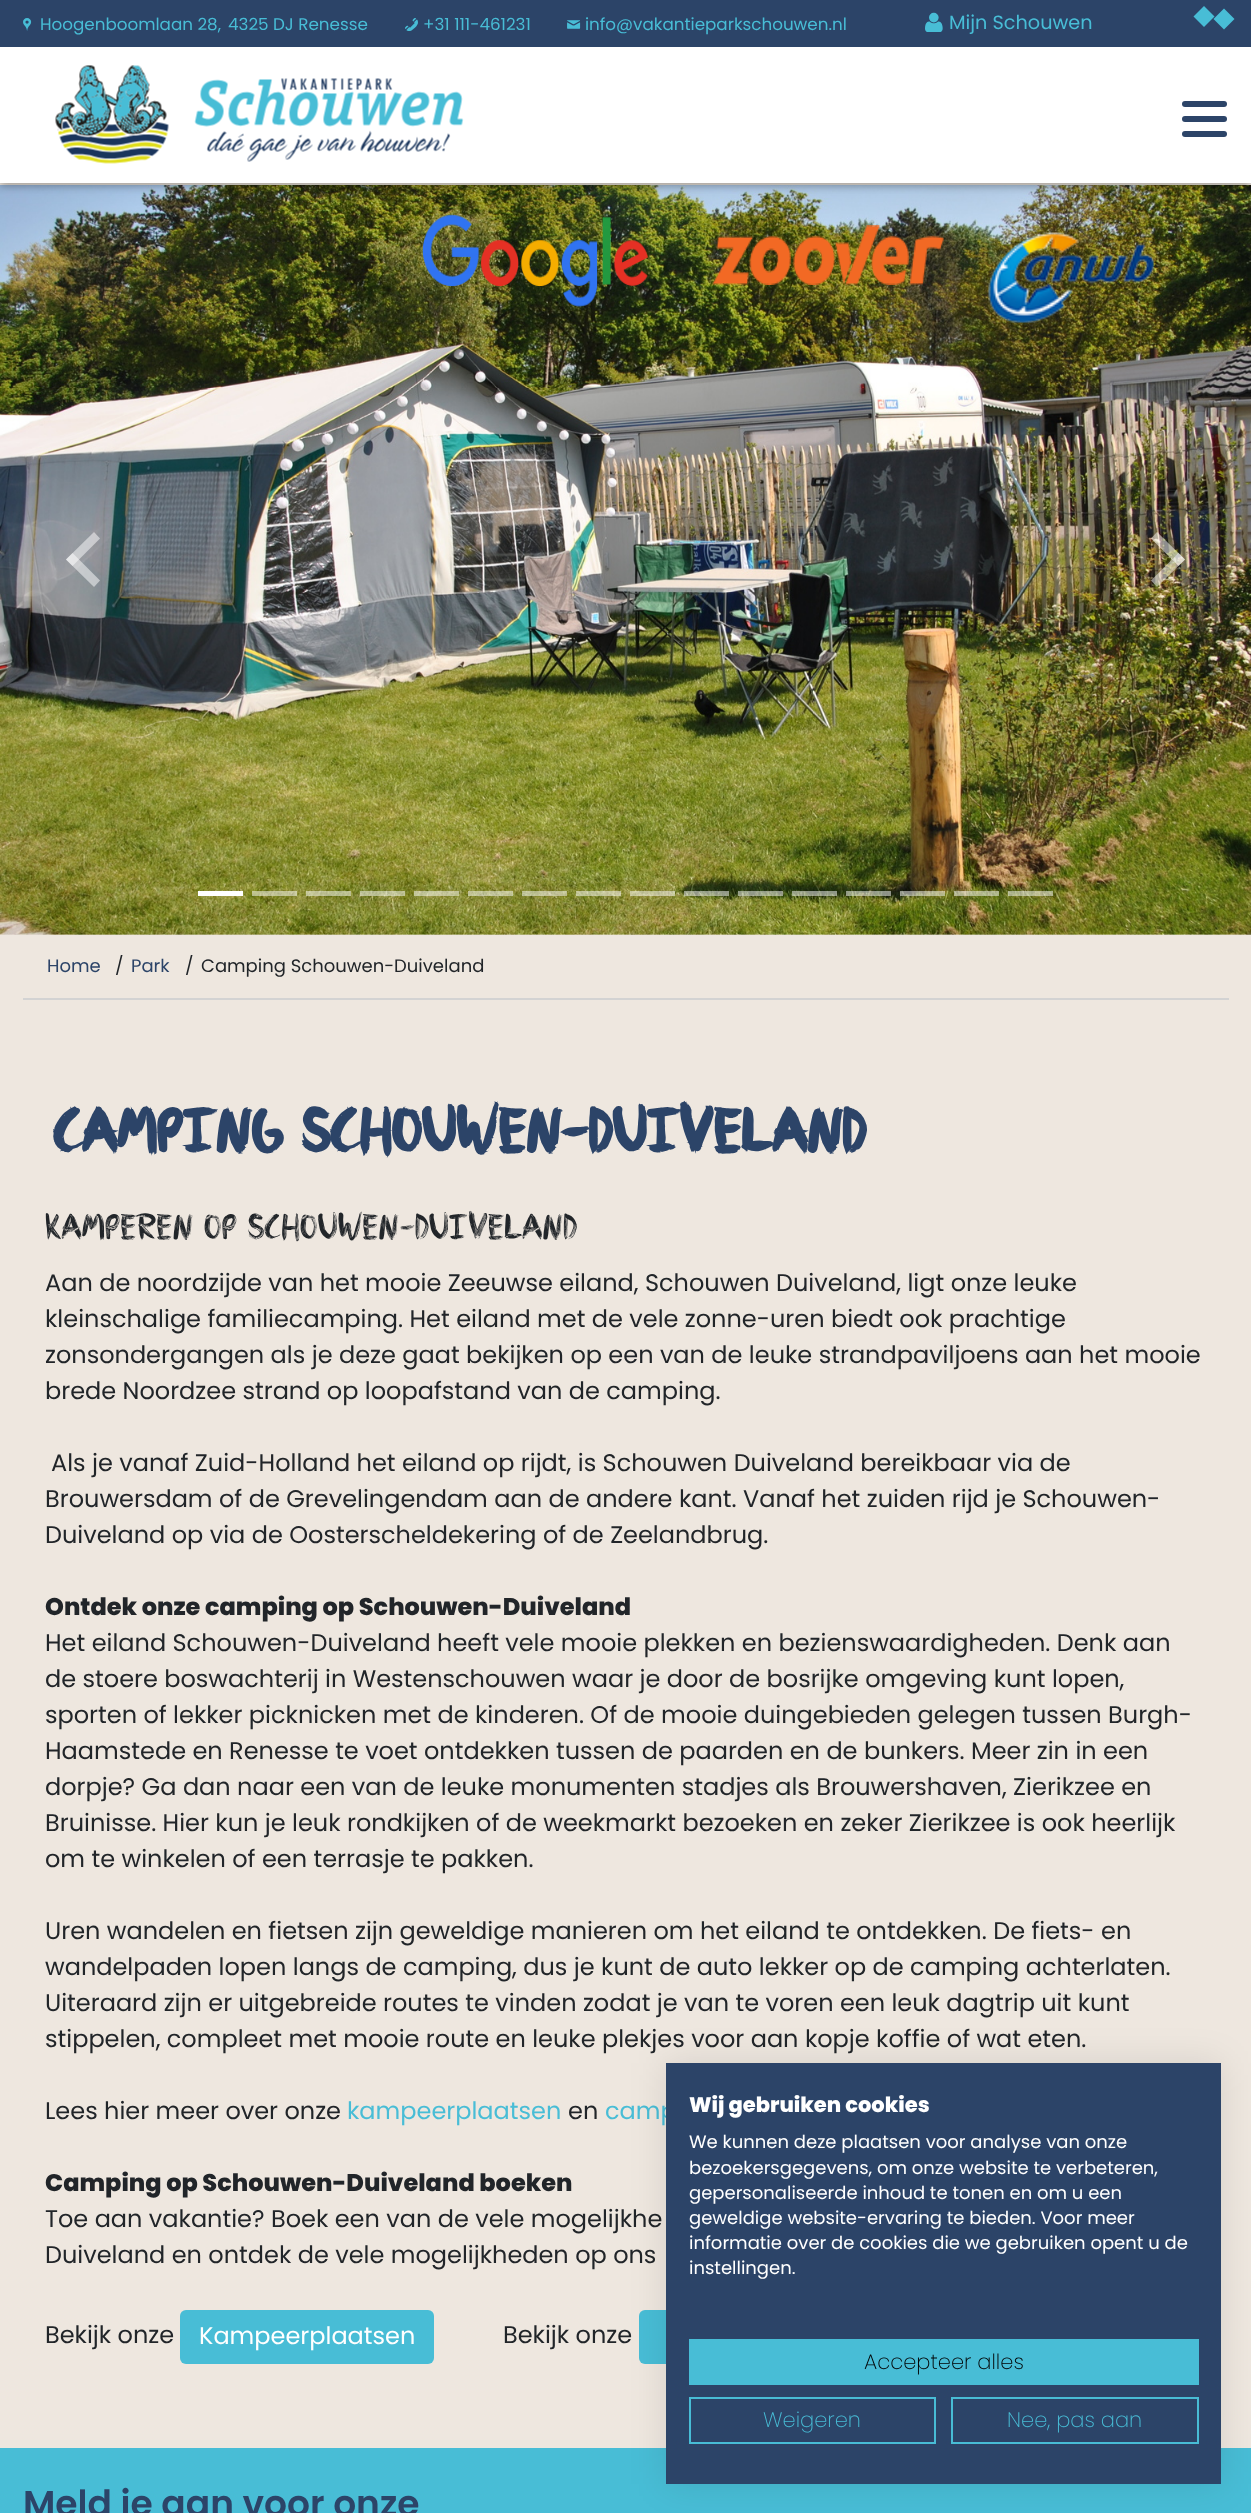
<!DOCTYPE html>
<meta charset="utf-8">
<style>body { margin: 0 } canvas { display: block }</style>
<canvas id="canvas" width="1251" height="2513"></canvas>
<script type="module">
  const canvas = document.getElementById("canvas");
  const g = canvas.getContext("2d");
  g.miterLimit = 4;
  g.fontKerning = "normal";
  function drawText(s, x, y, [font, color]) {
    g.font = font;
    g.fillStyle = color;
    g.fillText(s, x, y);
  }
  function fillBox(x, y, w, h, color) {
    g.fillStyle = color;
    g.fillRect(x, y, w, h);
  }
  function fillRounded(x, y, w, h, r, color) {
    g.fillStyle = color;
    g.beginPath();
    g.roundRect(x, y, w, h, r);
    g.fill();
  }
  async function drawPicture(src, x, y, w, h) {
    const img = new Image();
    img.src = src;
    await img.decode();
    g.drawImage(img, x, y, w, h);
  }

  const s1 = ["13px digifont", "#48BDD6"];
  const s2 = ["16.75px Poppins", "#48BDD6"];
  const s3 = ["19.25px digifont", "#48BDD6"];
  const s4 = ["19.25px Poppins", "#48BDD6"];
  const s5 = ["18px Poppins", "#2C4468"];
  const s6 = ["18px Poppins", "#212529"];
  const s7 = ["bold 72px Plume", "#2C4468"];
  const s8 = ["42px Plume", "#212529"];
  const s9 = ["24px Poppins", "#212529"];
  const s10 = ["800 24px Poppins", "#212529"];
  const s11 = ["24px Poppins", "#48BDD6"];
  const s12 = ["24px Poppins", "#FFFFFF"];
  const s13 = ["800 21px Poppins", "#FFFFFF"];
  const s14 = ["18px Poppins", "#FFFFFF"];
  const s15 = ["200 21px Poppins", "#000000"];
  const s16 = ["200 21px Poppins", "#48BDD6"];
  const s17 = ["600 36px Poppins", "#2C4468"];

  fillBox(0, 0, 1251, 2513, "#EEE7DF");
  await drawPicture("pic2.png", 0, 185, 1251, 750);
  g.fillStyle = "rgba(0, 0, 0, 0.33)";
  g.filter = "blur(4px)";
  g.beginPath();
  g.rect(0, 2, 1251, 184);
  g.fill();
  g.filter = "none";
  fillBox(0, 0, 1251, 47, "#2C4468");
  drawText("U", 23, 31, s1);
  drawText("Hoogenboomlaan 28,", 40, 30, s2);
  drawText("4325 DJ Renesse", 228, 30, s2);
  drawText("b", 405, 31, s1);
  drawText("+31 111-461231", 423, 30, s2);
  drawText("%", 567, 31, s1);
  drawText("info@vakantieparkschouwen.nl", 585, 30, s2);
  drawText("m", 925, 32, s3);
  drawText("Mijn Schouwen", 949, 29, s4);
  g.beginPath();
  g.moveTo(1213.5, 19);
  g.lineTo(1224, 8.5);
  g.lineTo(1234.5, 19);
  g.lineTo(1224, 29.5);
  g.closePath();
  g.fill();
  g.beginPath();
  g.moveTo(1204, 6);
  g.lineTo(1214.5, 16.5);
  g.lineTo(1204, 27);
  g.lineTo(1193.5, 16.5);
  g.closePath();
  g.fill();
  fillBox(0, 47, 1251, 136, "#FFFFFF");
  await drawPicture("pic1.png", 55, 65, 409, 99);
  fillRounded(1182, 131, 45, 6, 3, "#2C4468");
  fillRounded(1182, 101, 45, 6, 3, "#2C4468");
  fillRounded(1182, 116, 45, 6, 3, "#2C4468");
  g.fillStyle = "rgba(255, 255, 255, 0.5)";
  g.beginPath();
  g.moveTo(94, 587);
  g.lineTo(66, 559.5);
  g.lineTo(72.5, 553);
  g.lineTo(100, 580.5);
  g.closePath();
  g.fill();
  g.beginPath();
  g.moveTo(72.5, 566);
  g.lineTo(66, 559.5);
  g.lineTo(94, 532);
  g.lineTo(100, 538.5);
  g.closePath();
  g.fill();
  g.beginPath();
  g.moveTo(1157, 532);
  g.lineTo(1185, 559.5);
  g.lineTo(1178.5, 566);
  g.lineTo(1151, 538.5);
  g.closePath();
  g.fill();
  g.beginPath();
  g.moveTo(1178.5, 553);
  g.lineTo(1185, 559.5);
  g.lineTo(1157, 587);
  g.lineTo(1151, 580.5);
  g.closePath();
  g.fill();
  fillBox(198, 891, 45, 5, "#FFFFFF");
  fillBox(252, 891, 45, 5, "rgba(255, 255, 255, 0.5)");
  fillBox(306, 891, 45, 5, "rgba(255, 255, 255, 0.5)");
  fillBox(360, 891, 45, 5, "rgba(255, 255, 255, 0.5)");
  fillBox(414, 891, 45, 5, "rgba(255, 255, 255, 0.5)");
  fillBox(468, 891, 45, 5, "rgba(255, 255, 255, 0.5)");
  fillBox(522, 891, 45, 5, "rgba(255, 255, 255, 0.5)");
  fillBox(576, 891, 45, 5, "rgba(255, 255, 255, 0.5)");
  fillBox(630, 891, 45, 5, "rgba(255, 255, 255, 0.5)");
  fillBox(684, 891, 45, 5, "rgba(255, 255, 255, 0.5)");
  fillBox(738, 891, 45, 5, "rgba(255, 255, 255, 0.5)");
  fillBox(792, 891, 45, 5, "rgba(255, 255, 255, 0.5)");
  fillBox(846, 891, 45, 5, "rgba(255, 255, 255, 0.5)");
  fillBox(900, 891, 45, 5, "rgba(255, 255, 255, 0.5)");
  fillBox(954, 891, 45, 5, "rgba(255, 255, 255, 0.5)");
  fillBox(1008, 891, 45, 5, "rgba(255, 255, 255, 0.5)");
  await drawPicture("pic3.png", 422, 214, 227, 93);
  await drawPicture("pic4.png", 712, 225, 232, 60);
  await drawPicture("pic5.png", 988, 232, 166, 91);
  fillBox(23, 998, 1206, 2, "#D3D3D3");
  drawText("Home", 47, 972, s5);
  drawText("/", 115, 972, s6);
  drawText("Park", 131, 972, s5);
  drawText("/", 185, 972, s6);
  drawText("Camping Schouwen-Duiveland", 201, 972, s6);
  drawText("Camping Schouwen-Duiveland", 53, 1152, s7);
  drawText("Kamperen op Schouwen-Duiveland", 45, 1239, s8);
  drawText("Aan de noordzijde van het mooie Zeeuwse eiland, Schouwen Duiveland, ligt onze leuke", 45, 1291, s9);
  drawText("kleinschalige familiecamping. Het eiland met de vele zonne-uren biedt ook prachtige", 45, 1327, s9);
  drawText("zonsondergangen als je deze gaat bekijken op een van de leuke strandpaviljoens aan het mooie", 45, 1363, s9);
  drawText("brede Noordzee strand op loopafstand van de camping.", 45, 1399, s9);
  drawText("Als je vanaf Zuid-Holland het eiland op rijdt, is Schouwen Duiveland bereikbaar via de", 51, 1471, s9);
  drawText("Brouwersdam of de Grevelingendam aan de andere kant. Vanaf het zuiden rijd je Schouwen-", 45, 1507, s9);
  drawText("Duiveland op via de Oosterscheldekering of de Zeelandbrug.", 45, 1543, s9);
  drawText("Ontdek onze camping op Schouwen-Duiveland", 45, 1615, s10);
  drawText("Het eiland Schouwen-Duiveland heeft vele mooie plekken en bezienswaardigheden. Denk aan", 45, 1651, s9);
  drawText("de stoere boswachterij in Westenschouwen waar je door de bosrijke omgeving kunt lopen,", 45, 1687, s9);
  drawText("sporten of lekker picknicken met de kinderen. Of de mooie duingebieden gelegen tussen Burgh-", 45, 1723, s9);
  drawText("Haamstede en Renesse te voet ontdekken tussen de paarden en de bunkers. Meer zin in een", 45, 1759, s9);
  drawText("dorpje? Ga dan naar een van de leuke monumenten stadjes als Brouwershaven, Zierikzee en", 45, 1795, s9);
  drawText("Bruinisse. Hier kun je leuk rondkijken of de weekmarkt bezoeken en zeker Zierikzee is ook heerlijk", 45, 1831, s9);
  drawText("om te winkelen of een terrasje te pakken.", 45, 1867, s9);
  drawText("Uren wandelen en fietsen zijn geweldige manieren om het eiland te ontdekken. De fiets- en", 45, 1939, s9);
  drawText("wandelpaden lopen langs de camping, dus je kunt de auto lekker op de camping achterlaten.", 45, 1975, s9);
  drawText("Uiteraard zijn er uitgebreide routes te vinden zodat je van te voren een leuk dagtrip uit kunt", 45, 2011, s9);
  drawText("stippelen, compleet met mooie route en leuke plekjes voor aan kopje koffie of wat eten.", 45, 2047, s9);
  drawText("Lees hier meer over onze", 45, 2119, s9);
  drawText("kampeerplaatsen", 347, 2119, s11);
  drawText("en", 568, 2119, s9);
  drawText("camp", 605, 2119, s11);
  drawText("Camping op Schouwen-Duiveland boeken", 45, 2191, s10);
  drawText("Toe aan vakantie? Boek een van de vele mogelijkhe", 45, 2227, s9);
  drawText("Duiveland en ontdek de vele mogelijkheden op ons", 45, 2263, s9);
  drawText("Bekijk onze", 45, 2343, s9);
  fillRounded(180, 2310, 254, 54, 6, "#48BDD6");
  drawText("Kampeerplaatsen", 199, 2344, s12);
  drawText("Bekijk onze", 503, 2343, s9);
  fillRounded(639, 2310, 242, 54, 6, "#48BDD6");
  fillBox(0, 2448, 1251, 65, "#48BDD6");
  g.fillStyle = "rgba(0, 0, 0, 0.1)";
  g.filter = "blur(18px)";
  g.beginPath();
  g.rect(666, 2063, 555, 421);
  g.fill();
  g.filter = "none";
  fillBox(666, 2063, 555, 421, "#2C4468");
  drawText("Wij gebruiken cookies", 689, 2112, s13);
  drawText("We kunnen deze plaatsen voor analyse van onze", 689, 2148, s14);
  drawText("bezoekersgegevens, om onze website te verbeteren,", 689, 2174, s14);
  drawText("gepersonaliseerde inhoud te tonen en om u een", 689, 2199, s14);
  drawText("geweldige website-ervaring te bieden. Voor meer", 689, 2224, s14);
  drawText("informatie over de cookies die we gebruiken opent u de", 689, 2249, s14);
  drawText("instellingen.", 689, 2274, s14);
  fillBox(689, 2339, 510, 46, "#48BDD6");
  drawText("Accepteer alles", 864, 2369, s15);
  g.strokeStyle = "#48BDD6";
  g.lineWidth = 2;
  g.strokeRect(690, 2398, 245, 45);
  drawText("Weigeren", 763, 2427, s16);
  g.strokeRect(952, 2398, 246, 45);
  drawText("Nee, pas aan", 1007, 2427, s16);
  drawText("Meld je aan voor onze", 23, 2516, s17);
</script>
